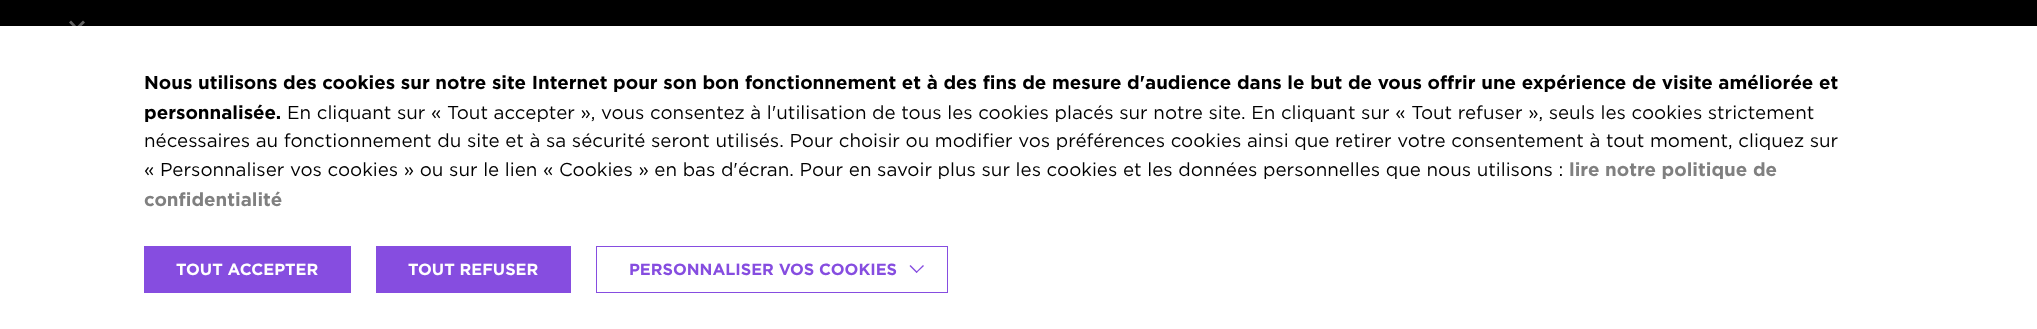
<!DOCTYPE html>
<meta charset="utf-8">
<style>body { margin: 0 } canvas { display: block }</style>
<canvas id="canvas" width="2037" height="329"></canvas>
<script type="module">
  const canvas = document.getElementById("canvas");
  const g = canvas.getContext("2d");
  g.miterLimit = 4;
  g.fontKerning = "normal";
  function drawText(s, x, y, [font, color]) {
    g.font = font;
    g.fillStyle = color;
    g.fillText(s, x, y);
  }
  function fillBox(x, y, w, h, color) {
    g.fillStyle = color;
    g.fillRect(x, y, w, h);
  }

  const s1 = ["bold 18.75px Gotham", "#000000"];
  const s2 = ["18.75px Gotham", "#000000"];
  const s3 = ["bold 18.75px Gotham", "#808080"];
  const s4 = ["bold 16.25px Gotham", "#FFFFFF"];
  const s5 = ["bold 16.25px Gotham", "#864DE0"];

  fillBox(0, 0, 2037, 329, "#000000");
  g.fillStyle = "#666666";
  g.beginPath();
  g.moveTo(83, 20.5);
  g.lineTo(85, 22.5);
  g.lineTo(77, 30.5);
  g.lineTo(75, 28.5);
  g.closePath();
  g.fill();
  g.beginPath();
  g.moveTo(71, 20.5);
  g.lineTo(78.5, 28.5);
  g.lineTo(77, 30.5);
  g.lineTo(69, 22.5);
  g.closePath();
  g.fill();
  g.fillStyle = "rgba(0, 0, 0, 0.2)";
  g.filter = "blur(3px)";
  g.beginPath();
  g.rect(-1, 25, 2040, 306);
  g.fill();
  g.filter = "none";
  fillBox(0, 26, 2037, 303, "#FFFFFF");
  drawText("Nous utilisons des cookies sur notre site Internet pour son bon fonctionnement et à des fins de mesure d'audience dans le but de vous offrir une expérience de visite améliorée et", 144, 89, s1);
  drawText("personnalisée.", 144, 119, s1);
  drawText("En cliquant sur « Tout accepter », vous consentez à l'utilisation de tous les cookies placés sur notre site. En cliquant sur « Tout refuser », seuls les cookies strictement", 287, 119, s2);
  drawText("nécessaires au fonctionnement du site et à sa sécurité seront utilisés. Pour choisir ou modifier vos préférences cookies ainsi que retirer votre consentement à tout moment, cliquez sur", 144, 147, s2);
  drawText("« Personnaliser vos cookies » ou sur le lien « Cookies » en bas d'écran. Pour en savoir plus sur les cookies et les données personnelles que nous utilisons :", 144, 176, s2);
  drawText("lire notre politique de", 1569, 176, s3);
  drawText("confidentialité", 144, 206, s3);
  fillBox(144, 246, 207, 47, "#864DE0");
  drawText("TOUT ACCEPTER", 176, 275, s4);
  fillBox(376, 246, 195, 47, "#864DE0");
  drawText("TOUT REFUSER", 408, 275, s4);
  g.strokeStyle = "#864DE0";
  g.strokeRect(596.5, 246.5, 351, 46);
  drawText("PERSONNALISER VOS COOKIES", 629, 275, s5);
  g.beginPath();
  g.moveTo(924, 266);
  g.lineTo(916.5, 273);
  g.lineTo(916, 272);
  g.lineTo(923, 265);
  g.closePath();
  g.fill();
  g.beginPath();
  g.moveTo(917.5, 272);
  g.lineTo(916.5, 273);
  g.lineTo(909.5, 266);
  g.lineTo(910.5, 265);
  g.closePath();
  g.fill();
</script>
